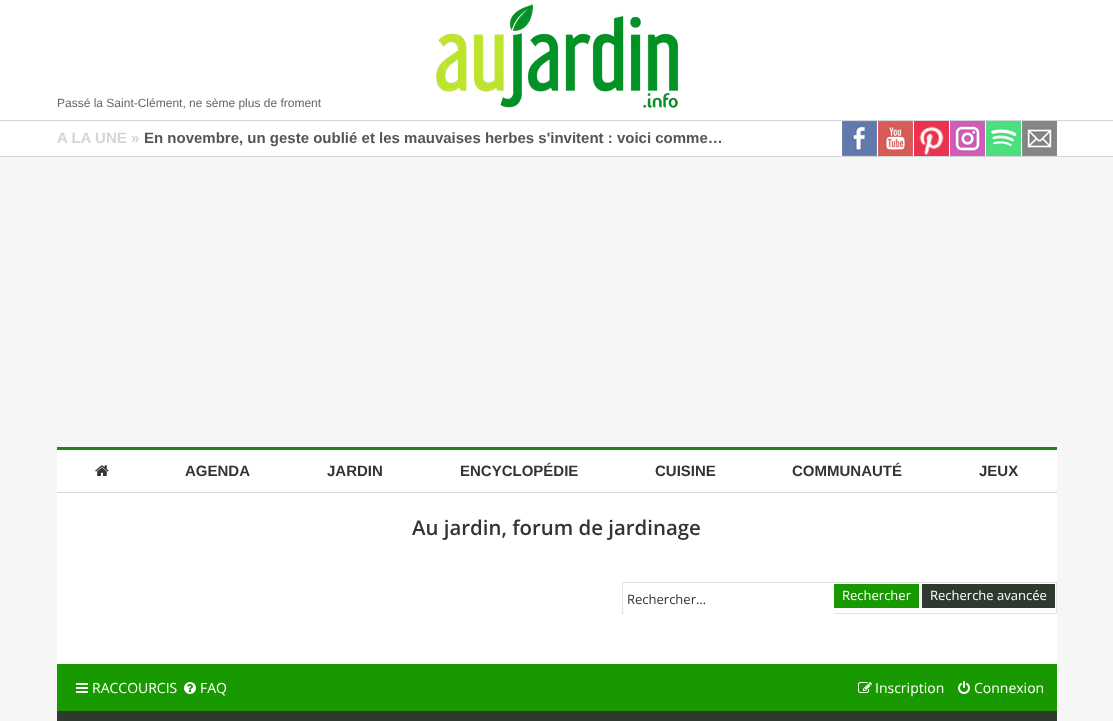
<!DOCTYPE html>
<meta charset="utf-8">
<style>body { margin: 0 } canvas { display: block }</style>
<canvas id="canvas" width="1113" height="721"></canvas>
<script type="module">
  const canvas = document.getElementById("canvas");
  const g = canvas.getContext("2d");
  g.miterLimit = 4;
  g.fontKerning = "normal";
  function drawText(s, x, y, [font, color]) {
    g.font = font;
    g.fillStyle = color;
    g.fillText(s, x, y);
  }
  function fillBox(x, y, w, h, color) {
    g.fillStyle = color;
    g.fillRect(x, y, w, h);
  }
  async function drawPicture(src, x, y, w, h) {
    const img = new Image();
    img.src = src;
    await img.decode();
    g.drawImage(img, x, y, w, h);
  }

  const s1 = ["12px Liberation Sans", "#666666"];
  const s2 = ["bold 15px Liberation Sans", "#D2D6DB"];
  const s3 = ["bold 15px Liberation Sans", "#555555"];
  const s4 = ["bold 15px Liberation Sans", "#333333"];
  const s5 = ["600 20.4px Open Sans", "#333333"];
  const s6 = ["13px Open Sans", "#333333"];
  const s7 = ["13px Open Sans", "#FFFFFF"];
  const s8 = ["14px Open Sans", "#FFFFFF"];

  fillBox(0, 0, 1113, 721, "#F6F6F6");
  fillBox(0, 0, 1113, 120, "#FFFFFF");
  drawText("Passé la Saint-Clément, ne sème plus de froment", 57, 107, s1);
  await drawPicture("pic1.png", 436, 4, 242, 104);
  fillBox(0, 121, 1113, 35, "#FFFFFF");
  fillBox(0, 120, 1113, 1, "#D2D6DB");
  fillBox(0, 156, 1113, 1, "#D2D6DB");
  drawText("A LA UNE »", 57, 143, s2);
  drawText("En novembre, un geste oublié et les mauvaises herbes s'invitent : voici comme…", 144, 143, s3);
  await drawPicture("pic2.png", 842, 121, 35, 35);
  await drawPicture("pic3.png", 878, 121, 35, 35);
  await drawPicture("pic4.png", 914, 121, 35, 35);
  await drawPicture("pic5.png", 950, 121, 35, 35);
  await drawPicture("pic6.png", 986, 121, 35, 35);
  await drawPicture("pic7.png", 1022, 121, 35, 35);
  fillBox(57, 450, 1000, 214, "#FFFFFF");
  fillBox(57, 447, 1000, 3, "#1B8815");
  fillBox(57, 492, 1000, 1, "#D2D6DB");
  await drawPicture("pic8.png", 95, 465, 14, 11);
  drawText("AGENDA", 185, 476, s4);
  drawText("JARDIN", 327, 476, s4);
  drawText("ENCYCLOPÉDIE", 460, 476, s4);
  drawText("CUISINE", 655, 476, s4);
  drawText("COMMUNAUTÉ", 792, 476, s4);
  drawText("JEUX", 979, 476, s4);
  drawText("Au jardin, forum de jardinage", 412, 535, s5);
  g.strokeStyle = "#E4E4E4";
  g.strokeRect(622.5, 582.5, 434, 31);
  fillBox(624, 613, 210, 1, "#FFFFFF");
  drawText("Rechercher…", 627, 604, s6);
  fillBox(834, 584, 85, 24, "#189900");
  drawText("Rechercher", 842, 600, s7);
  fillBox(922, 584, 133, 24, "#2E392F");
  drawText("Recherche avancée", 930, 600, s7);
  fillBox(57, 664, 1000, 47, "#189900");
  await drawPicture("pic9.png", 76, 683, 12, 10);
  drawText("RACCOURCIS", 92, 693, s8);
  await drawPicture("pic10.png", 184, 682, 12, 12);
  drawText("FAQ", 200, 693, s8);
  await drawPicture("pic11.png", 858, 682, 14, 11);
  drawText("Inscription", 875, 693, s8);
  await drawPicture("pic12.png", 958, 681, 12, 13);
  drawText("Connexion", 974, 693, s8);
  fillBox(57, 711, 1000, 10, "#2E392F");
</script>
